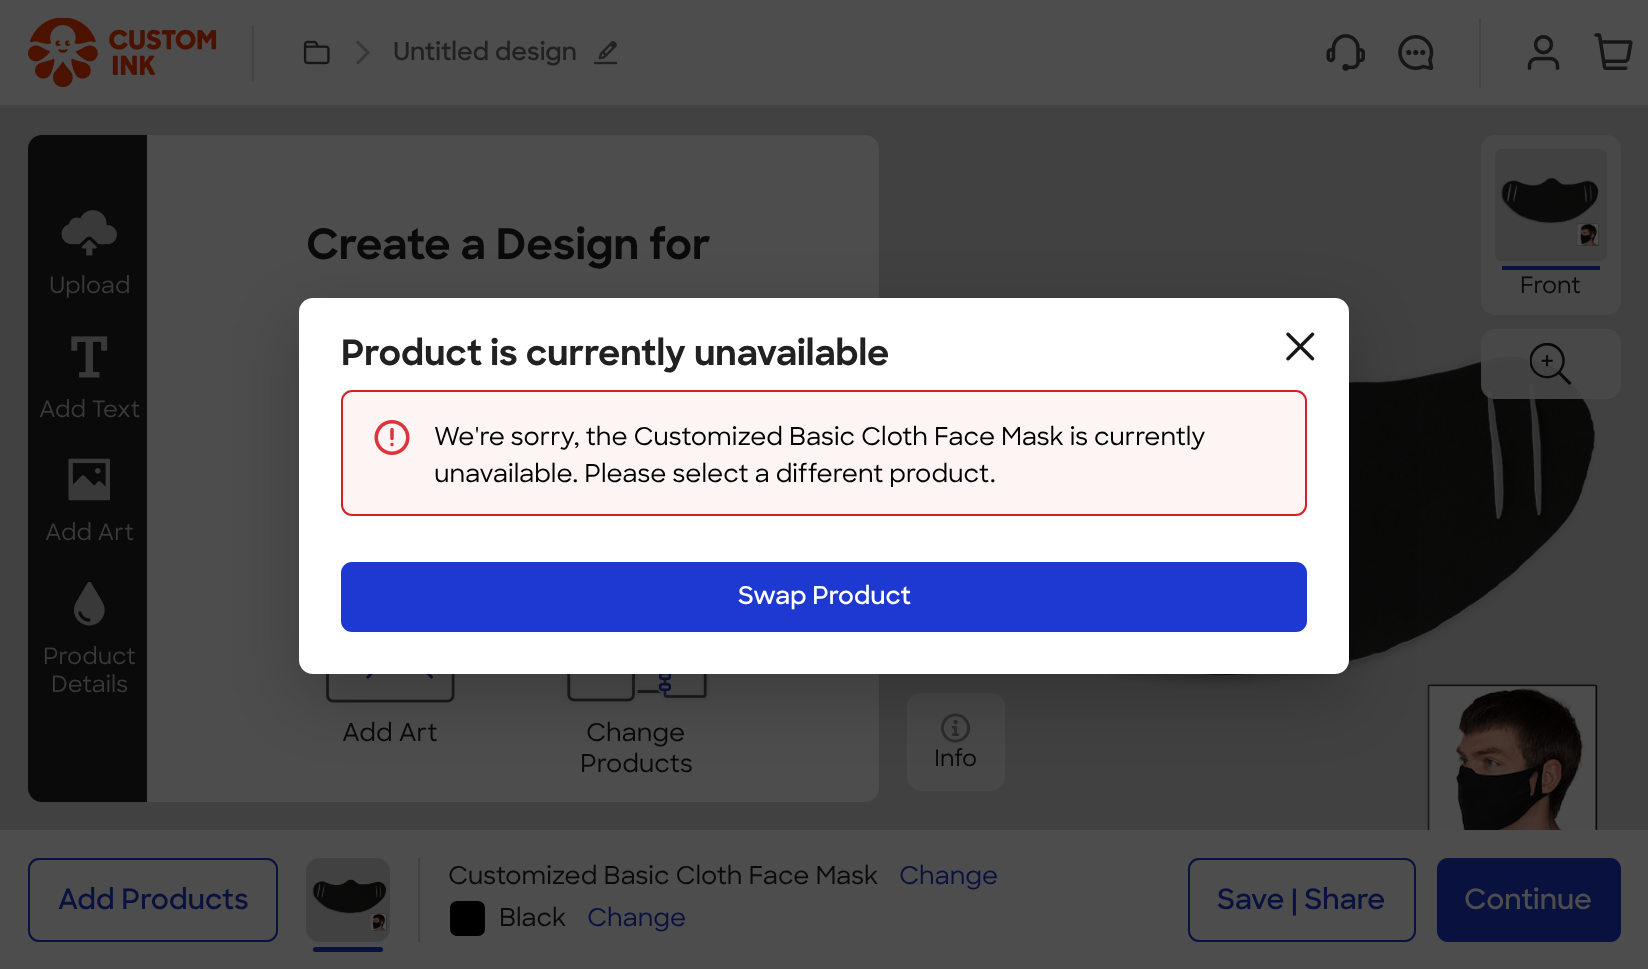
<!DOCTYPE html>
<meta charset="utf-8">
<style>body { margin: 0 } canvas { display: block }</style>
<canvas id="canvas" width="1648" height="969"></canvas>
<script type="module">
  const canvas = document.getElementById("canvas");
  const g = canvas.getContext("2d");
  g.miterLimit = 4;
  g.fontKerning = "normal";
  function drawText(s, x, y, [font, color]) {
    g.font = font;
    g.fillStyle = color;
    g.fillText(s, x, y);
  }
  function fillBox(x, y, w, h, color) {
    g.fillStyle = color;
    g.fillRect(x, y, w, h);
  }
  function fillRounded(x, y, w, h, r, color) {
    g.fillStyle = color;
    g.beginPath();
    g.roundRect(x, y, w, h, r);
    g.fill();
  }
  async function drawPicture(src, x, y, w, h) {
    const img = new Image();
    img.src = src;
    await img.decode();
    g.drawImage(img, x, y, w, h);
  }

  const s1 = ["600 24.5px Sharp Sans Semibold", "#212121"];
  const s2 = ["500 22.75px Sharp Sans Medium", "#393939"];
  const s3 = ["bold 42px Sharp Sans", "#0A0A0A"];
  const s4 = ["500 24.5px Sharp Sans Medium", "#0A0A0A"];
  const s5 = ["500 22.75px Sharp Sans Medium", "#0A0A0A"];
  const s6 = ["bold 35px Sharp Sans", "#212121"];
  const s7 = ["500 24.5px Sharp Sans Medium", "#000000"];
  const s8 = ["600 24.5px Sharp Sans Semibold", "#FFFFFF"];
  const s9 = ["600 28px Sharp Sans Semibold", "#09113F"];
  const s10 = ["500 24.5px Sharp Sans Medium", "#09113F"];
  const s11 = ["600 28px Sharp Sans Semibold", "#4D4D4D"];

  fillBox(0, 0, 1648, 969, "#4D4D4D");
  fillBox(0, 105, 1648, 2, "#444444");
  await drawPicture("pic1.png", 28, 18, 189, 70);
  fillBox(252, 25, 2, 56, "#434343");
  await drawPicture("pic2.png", 303, 40, 27, 25);
  await drawPicture("pic3.png", 356, 40, 14, 25);
  drawText("Untitled design", 393, 60, s1);
  await drawPicture("pic4.png", 593, 41, 25, 24);
  await drawPicture("pic5.png", 1326, 34, 39, 37);
  await drawPicture("pic6.png", 1398, 35, 36, 35);
  fillBox(1479, 18, 2, 70, "#434343");
  await drawPicture("pic7.png", 1527, 35, 33, 35);
  await drawPicture("pic8.png", 1594, 33, 39, 37);
  fillBox(0, 107, 1648, 723, "#414141");
  g.fillStyle = "#0A0A0A";
  g.beginPath();
  g.roundRect(28, 135, 119, 667, [14, 0, 0, 14]);
  g.fill();
  await drawPicture("pic9.png", 61, 210, 56, 46);
  drawText("Upload", 49, 293, s2);
  await drawPicture("pic10.png", 71, 336, 37, 42);
  drawText("Add Text", 39, 417, s2);
  await drawPicture("pic11.png", 68, 458, 42, 43);
  drawText("Add Art", 45, 540, s2);
  await drawPicture("pic12.png", 73, 581, 32, 45);
  drawText("Product", 43, 664, s2);
  drawText("Details", 51, 692, s2);
  g.fillStyle = "#4D4D4D";
  g.beginPath();
  g.roundRect(147, 135, 732, 667, [0, 14, 14, 0]);
  g.fill();
  drawText("Create a Design for", 306, 259, s3);
  await drawPicture("pic13.png", 326, 674, 129, 29);
  drawText("Add Art", 342, 741, s4);
  await drawPicture("pic14.png", 564, 674, 146, 30);
  drawText("Change", 586, 741, s4);
  drawText("Products", 580, 772, s4);
  fillRounded(1481, 135, 140, 180, 14, "#484848");
  fillRounded(1495, 149, 112, 112, 7, "#414141");
  await drawPicture("pic15.png", 1500, 178, 99, 68);
  fillBox(1502, 266, 98, 4, "#09113F");
  drawText("Front", 1520, 293, s5);
  await drawPicture("pic18.png", 1103, 353, 495, 477);
  fillRounded(1481, 329, 140, 70, 14, "rgba(73, 73, 73, 0.9)");
  await drawPicture("pic16.png", 1530, 343, 42, 42);
  fillRounded(907, 693, 98, 98, 14, "#484848");
  await drawPicture("pic17.png", 941, 713, 30, 30);
  drawText("Info", 934, 766, s5);
  g.fillStyle = "rgba(0, 0, 0, 0.21)";
  g.filter = "blur(32.5px)";
  g.beginPath();
  g.roundRect(299, 320, 1050, 377, 14);
  g.fill();
  g.filter = "none";
  fillRounded(299, 298, 1050, 376, 14, "#FFFFFF");
  drawText("Product is currently unavailable", 341, 365, s6);
  await drawPicture("pic19.png", 1286, 332, 29, 29);
  g.fillStyle = "#FDF4F4";
  g.beginPath();
  g.roundRect(342, 391, 964, 124, 10);
  g.fill();
  g.strokeStyle = "#DA1E28";
  g.lineWidth = 2;
  g.stroke();
  await drawPicture("pic20.png", 374, 420, 36, 35);
  drawText("We're sorry, the Customized Basic Cloth Face Mask is currently", 434, 445, s7);
  drawText("unavailable. Please select a different product.", 434, 482, s7);
  fillRounded(341, 562, 966, 70, 11, "#1E39D2");
  drawText("Swap Product", 738, 604, s8);
  g.beginPath();
  g.roundRect(29, 859, 248, 82, 10);
  g.strokeStyle = "#09113F";
  g.stroke();
  drawText("Add Products", 58, 909, s9);
  fillRounded(306, 858, 84, 84, 14, "#414141");
  await drawPicture("pic21.png", 312, 879, 75, 52);
  fillRounded(313, 947, 70, 5, 2.5, "#09113F");
  fillBox(418, 858, 2, 84, "#414141");
  drawText("Customized Basic Cloth Face Mask", 448, 884, s4);
  drawText("Change", 899, 884, s10);
  fillRounded(450, 901, 35, 35, 7, "#000000");
  drawText("Black", 499, 926, s4);
  drawText("Change", 587, 926, s10);
  g.beginPath();
  g.roundRect(1189, 859, 226, 82, 10);
  g.stroke();
  drawText("Save | Share", 1217, 909, s9);
  fillRounded(1437, 858, 184, 84, 11, "#09113F");
  drawText("Continue", 1464, 909, s11);
</script>
